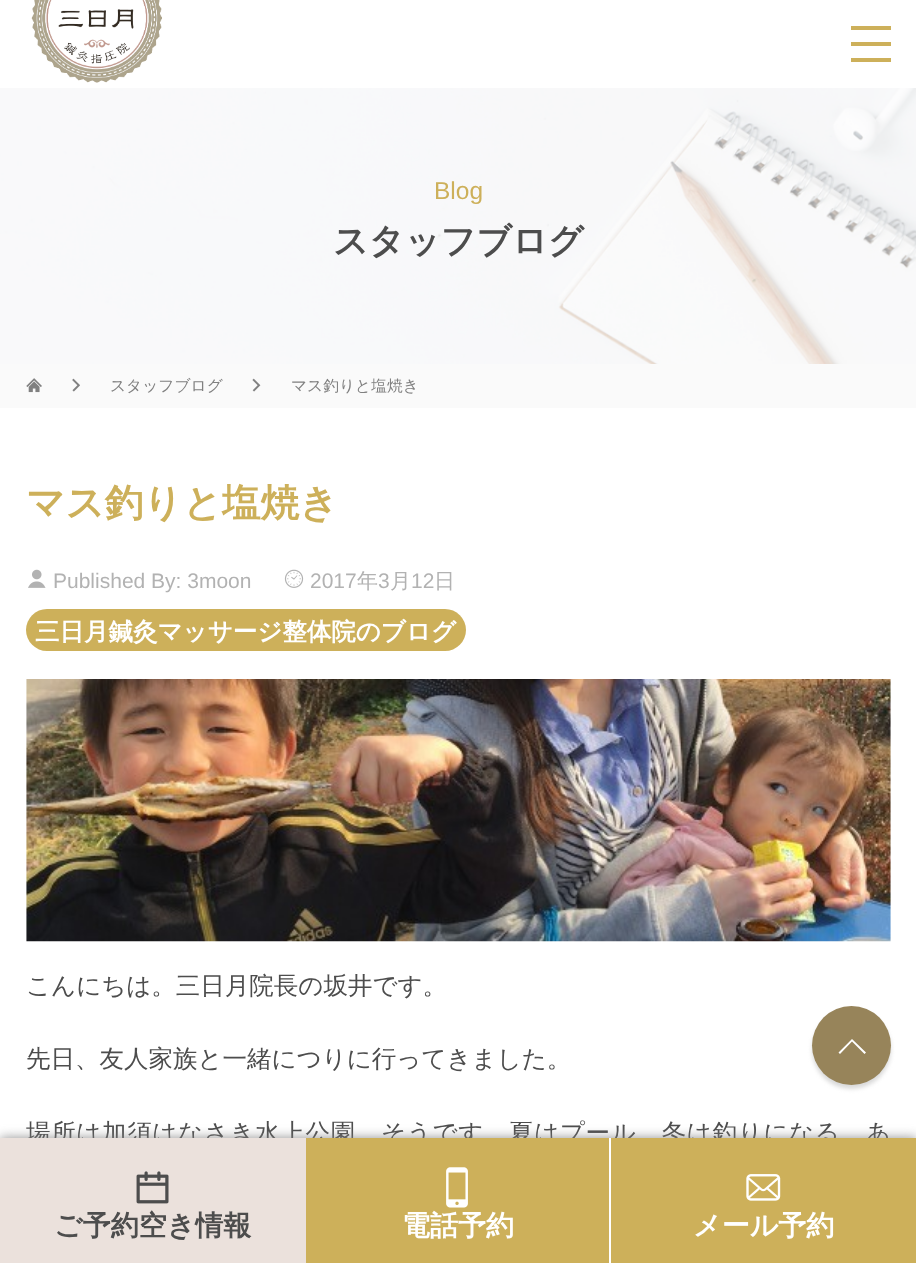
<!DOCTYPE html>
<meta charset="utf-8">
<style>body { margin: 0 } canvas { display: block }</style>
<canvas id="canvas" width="916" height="1263"></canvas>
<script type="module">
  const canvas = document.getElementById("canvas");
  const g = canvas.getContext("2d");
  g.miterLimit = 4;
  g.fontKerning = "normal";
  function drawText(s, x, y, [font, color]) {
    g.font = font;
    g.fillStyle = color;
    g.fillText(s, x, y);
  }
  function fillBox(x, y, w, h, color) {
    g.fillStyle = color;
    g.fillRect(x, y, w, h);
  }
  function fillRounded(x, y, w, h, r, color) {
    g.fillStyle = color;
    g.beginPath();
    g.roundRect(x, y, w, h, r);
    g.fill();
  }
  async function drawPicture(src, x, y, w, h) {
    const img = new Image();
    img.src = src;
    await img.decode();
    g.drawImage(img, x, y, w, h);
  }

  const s1 = ["24.5px Liberation Sans", "#CDB05A"];
  const s2 = ["bold 35px WenQuanYi Zen Hei", "#4D4D4D"];
  const s3 = ["500 15.75px WenQuanYi Zen Hei", "#808080"];
  const s4 = ["bold 38.5px WenQuanYi Zen Hei", "#CDB05A"];
  const s5 = ["21px Liberation Sans", "#B2B2B2"];
  const s6 = ["500 21px WenQuanYi Zen Hei", "#B2B2B2"];
  const s7 = ["bold 24.5px WenQuanYi Zen Hei", "#FFFFFF"];
  const s8 = ["500 24.5px WenQuanYi Zen Hei", "#4D4D4D"];
  const s9 = ["bold 28px WenQuanYi Zen Hei", "#4D4D4D"];
  const s10 = ["bold 28px WenQuanYi Zen Hei", "#FFFFFF"];

  fillBox(0, 0, 916, 1263, "#FFFFFF");
  await drawPicture("pic1.png", 31, 0, 131, 83);
  fillBox(851, 26, 40, 4, "#CDB05A");
  fillBox(851, 42, 40, 4, "#CDB05A");
  fillBox(851, 58, 40, 4, "#CDB05A");
  await drawPicture("pic2.png", 0, 88, 916, 276);
  drawText("Blog", 434, 199, s1);
  drawText("スタッフブログ", 333, 253, s2);
  fillBox(0, 364, 916, 44, "#FAFAFA");
  await drawPicture("pic3.png", 26, 378, 16, 15);
  await drawPicture("pic4.png", 72, 378, 8, 14);
  drawText("スタッフブログ", 110, 391, s3);
  await drawPicture("pic5.png", 252, 378, 9, 14);
  drawText("マス釣りと塩焼き", 291, 391, s3);
  drawText("マス釣りと塩焼き", 26, 516, s4);
  await drawPicture("pic6.png", 28, 569, 18, 19);
  drawText("Published By: 3moon", 53, 588, s5);
  await drawPicture("pic7.png", 284, 569, 20, 19);
  drawText("2017", 310, 588, s5);
  drawText("年", 357, 588, s6);
  drawText("3", 378, 588, s5);
  drawText("月", 390, 588, s6);
  drawText("12", 411, 588, s5);
  drawText("日", 434, 588, s6);
  fillRounded(26, 609, 440, 42, 21, "#CDB05A");
  drawText("三日月鍼灸マッサージ整体院のブログ", 35, 640, s7);
  await drawPicture("pic8.png", 26, 679, 865, 263);
  drawText("こんにちは。三日月院長の坂井です。", 26, 994, s8);
  drawText("先日、友人家族と一緒につりに行ってきました。", 26, 1067, s8);
  g.letterSpacing = "0.65px";
  drawText("場所は加須はなさき水上公園。そうです。夏はプール、冬は釣りになる、あ", 26, 1141, s8);
  g.fillStyle = "rgba(132, 132, 132, 0.9)";
  g.filter = "blur(6px)";
  g.beginPath();
  g.rect(0, 1138, 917, 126);
  g.fill();
  g.filter = "none";
  fillBox(0, 1138, 306, 125, "#EBE1DC");
  await drawPicture("pic9.png", 136, 1171, 33, 33);
  g.letterSpacing = "0px";
  drawText("ご予約空き情報", 54, 1235, s9);
  fillBox(306, 1138, 303, 125, "#CDB05A");
  fillBox(609, 1138, 2, 125, "#FFFFFF");
  await drawPicture("pic10.png", 446, 1167, 22, 41);
  drawText("電話予約", 402, 1235, s10);
  fillBox(611, 1138, 305, 125, "#CDB05A");
  await drawPicture("pic11.png", 746, 1174, 35, 27);
  drawText("メール予約", 693, 1235, s10);
  g.fillStyle = "rgba(204, 204, 204, 0.75)";
  g.filter = "blur(2px)";
  g.beginPath();
  g.roundRect(812, 1010, 79, 79, 39.5);
  g.fill();
  g.filter = "none";
  g.fillStyle = "#97845A";
  g.beginPath();
  g.arc(851.5, 1045.5, 39.5, 0, Math.PI * 2);
  g.fill();
  g.fillStyle = "#FFFFFF";
  g.beginPath();
  g.moveTo(864.5, 1054);
  g.lineTo(852, 1041.5);
  g.lineTo(840, 1054);
  g.lineTo(838.5, 1052.5);
  g.lineTo(852, 1039);
  g.lineTo(866, 1052.5);
  g.closePath();
  g.fill();
</script>
